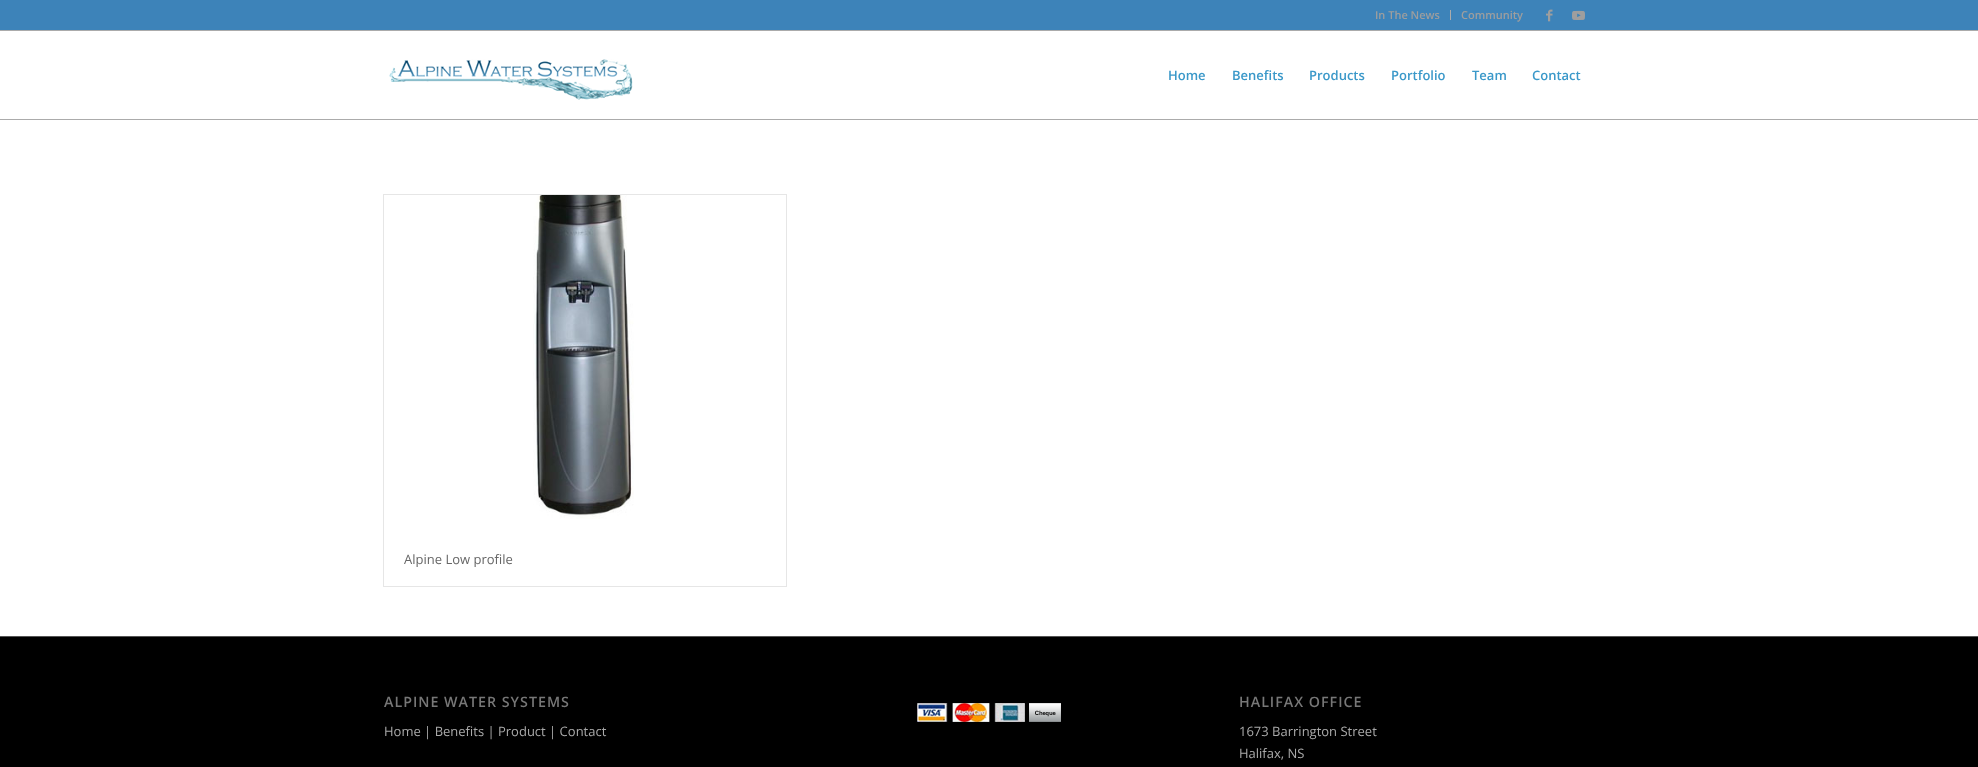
<!DOCTYPE html>
<meta charset="utf-8">
<style>body { margin: 0 } canvas { display: block }</style>
<canvas id="canvas" width="1978" height="767"></canvas>
<script type="module">
  const canvas = document.getElementById("canvas");
  const g = canvas.getContext("2d");
  g.miterLimit = 4;
  g.fontKerning = "normal";
  function drawText(s, x, y, [font, color]) {
    g.font = font;
    g.fillStyle = color;
    g.fillText(s, x, y);
  }
  function fillBox(x, y, w, h, color) {
    g.fillStyle = color;
    g.fillRect(x, y, w, h);
  }
  async function drawPicture(src, x, y, w, h) {
    const img = new Image();
    img.src = src;
    await img.decode();
    g.drawImage(img, x, y, w, h);
  }

  const s1 = ["600 11px Open Sans", "#9E9E9E"];
  const s2 = ["600 13px Open Sans", "#3A98C9"];
  const s3 = ["13px Open Sans", "#666666"];
  const s4 = ["600 14.25px Open Sans", "#777777"];
  const s5 = ["13px Open Sans", "#AAAAAA"];

  fillBox(0, 0, 1978, 767, "#FFFFFF");
  fillBox(0, 0, 1978, 30, "#3D83B9");
  fillBox(0, 30, 1978, 1, "#ABABAB");
  fillBox(1450, 10, 1, 10, "#ABABAB");
  drawText("In The News", 1375, 19, s1);
  drawText("Community", 1461, 19, s1);
  await drawPicture("pic1.png", 1546, 9, 7, 13);
  await drawPicture("pic2.png", 1572, 10, 13, 10);
  fillBox(0, 119, 1978, 1, "#ABABAB");
  await drawPicture("pic3.png", 389, 59, 244, 41);
  drawText("Home", 1168, 80, s2);
  drawText("Benefits", 1232, 80, s2);
  drawText("Products", 1309, 80, s2);
  drawText("Portfolio", 1391, 80, s2);
  drawText("Team", 1472, 80, s2);
  drawText("Contact", 1532, 80, s2);
  g.strokeStyle = "#E6E6E6";
  g.strokeRect(383.5, 194.5, 403, 392);
  await drawPicture("pic4.png", 533, 195, 101, 324);
  drawText("Alpine Low profile", 404, 564, s3);
  fillBox(0, 637, 1978, 130, "#000000");
  fillBox(0, 636, 1978, 1, "#555555");
  g.letterSpacing = "1px";
  drawText("ALPINE WATER SYSTEMS", 384, 707, s4);
  g.letterSpacing = "0px";
  drawText("Home | Benefits | Product | Contact", 384, 736, s5);
  await drawPicture("pic5.png", 917, 703, 144, 19);
  g.letterSpacing = "1px";
  drawText("HALIFAX OFFICE", 1239, 707, s4);
  g.letterSpacing = "0px";
  drawText("1673 Barrington Street", 1239, 736, s5);
  drawText("Halifax, NS", 1239, 758, s5);
</script>
